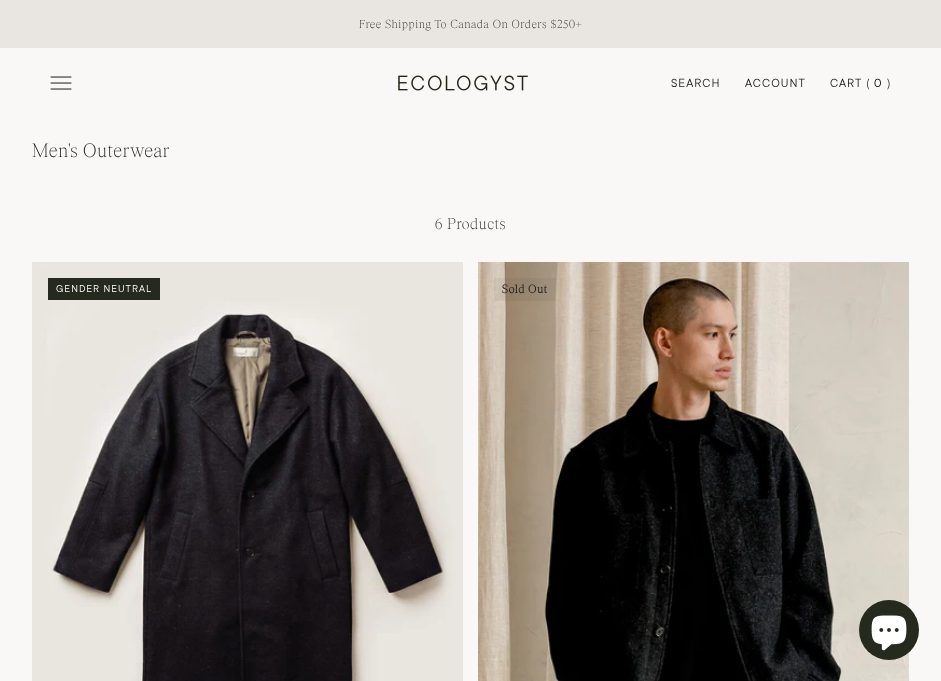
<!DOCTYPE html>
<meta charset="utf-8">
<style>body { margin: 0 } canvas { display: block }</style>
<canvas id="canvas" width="941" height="681"></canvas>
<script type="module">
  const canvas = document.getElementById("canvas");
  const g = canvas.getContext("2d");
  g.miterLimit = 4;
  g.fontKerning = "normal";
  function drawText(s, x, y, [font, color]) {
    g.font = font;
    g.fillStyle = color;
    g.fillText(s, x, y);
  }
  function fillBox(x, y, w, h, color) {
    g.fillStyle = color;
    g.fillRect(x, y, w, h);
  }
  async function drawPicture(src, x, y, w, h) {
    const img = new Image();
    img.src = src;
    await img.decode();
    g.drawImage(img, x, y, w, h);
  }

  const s1 = ["100 12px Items", "#1A1A1A"];
  const s2 = ["300 13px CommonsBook", "#1A1A1A"];
  const s3 = ["300 13px CommonsBook", "#000000"];
  const s4 = ["100 20px Items", "#1A1A1A"];
  const s5 = ["100 16px Items", "#1A1A1A"];
  const s6 = ["300 11px CommonsBook", "#FFFFFF"];
  const s7 = ["bold 12px Items", "#1A1A1A"];

  fillBox(0, 0, 941, 681, "#F9F8F6");
  fillBox(0, 0, 941, 48, "#E9E5E1");
  g.letterSpacing = "1px";
  drawText("Free Shipping To Canada On Orders $250+", 359, 28, s1);
  await drawPicture("pic1.png", 50, 76, 22, 14);
  await drawPicture("pic2.png", 398, 75, 130, 16);
  drawText("SEARCH", 671, 87, s2);
  drawText("ACCOUNT", 745, 87, s2);
  drawText("CART (", 830, 87, s2);
  drawText("0", 874, 87, s3);
  drawText(")", 887, 87, s2);
  drawText("Men's Outerwear", 32, 157, s4);
  drawText("6 Products", 435, 229, s5);
  await drawPicture("pic3.png", 32, 262, 431, 419);
  fillBox(48, 278, 112, 22, "#26291E");
  drawText("GENDER NEUTRAL", 56, 292, s6);
  await drawPicture("pic4.png", 478, 262, 431, 419);
  fillBox(494, 278, 62, 23, "rgba(26, 26, 26, 0.05)");
  drawText("Sold Out", 502, 293, s7);
  g.fillStyle = "#26291E";
  g.beginPath();
  g.arc(889, 630, 30, 0, Math.PI * 2);
  g.fill();
  await drawPicture("pic5.png", 871, 615, 36, 36);
</script>
